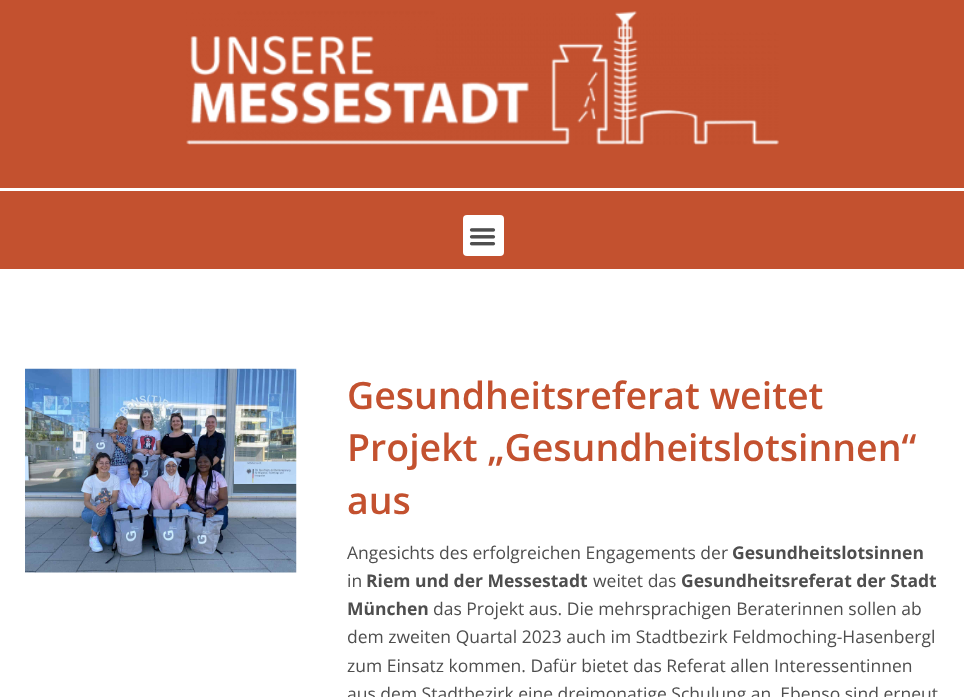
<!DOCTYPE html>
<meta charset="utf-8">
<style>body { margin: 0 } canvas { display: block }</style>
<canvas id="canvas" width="964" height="697"></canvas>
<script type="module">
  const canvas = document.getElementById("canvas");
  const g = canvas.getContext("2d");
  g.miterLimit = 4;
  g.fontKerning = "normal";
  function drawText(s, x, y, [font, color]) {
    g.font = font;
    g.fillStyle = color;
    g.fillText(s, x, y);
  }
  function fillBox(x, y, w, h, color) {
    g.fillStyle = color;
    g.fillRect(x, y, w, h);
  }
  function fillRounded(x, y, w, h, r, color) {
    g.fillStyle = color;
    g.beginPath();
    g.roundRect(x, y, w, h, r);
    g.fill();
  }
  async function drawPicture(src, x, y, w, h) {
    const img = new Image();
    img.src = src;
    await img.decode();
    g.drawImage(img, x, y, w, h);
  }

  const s1 = ["600 37.5px Open Sans", "#C3512F"];
  const s2 = ["17.5px Open Sans", "#4E4E4E"];
  const s3 = ["bold 17.5px Open Sans", "#4E4E4E"];

  fillBox(0, 0, 964, 697, "#FFFFFF");
  fillBox(0, 0, 964, 269, "#C3512F");
  await drawPicture("pic1.png", 186, 11, 593, 134);
  fillBox(0, 188, 964, 3, "#FFFFFF");
  fillRounded(463, 215, 41, 41, 4, "#FFFFFF");
  await drawPicture("pic2.png", 469, 228, 27, 18);
  await drawPicture("pic3.png", 25, 368, 272, 205);
  drawText("Gesundheitsreferat weitet", 347, 409, s1);
  drawText("Projekt „Gesundheitslotsinnen“", 347, 461, s1);
  drawText("aus", 347, 514, s1);
  drawText("Angesichts des erfolgreichen Engagements der", 347, 559, s2);
  drawText("Gesundheitslotsinnen", 732, 559, s3);
  drawText("in", 347, 587, s2);
  drawText("Riem und der Messestadt", 366, 587, s3);
  drawText("weitet das", 593, 587, s2);
  drawText("Gesundheitsreferat der Stadt", 681, 587, s3);
  drawText("München", 347, 615, s3);
  drawText("das Projekt aus. Die mehrsprachigen Beraterinnen sollen ab", 433, 615, s2);
  drawText("dem zweiten Quartal 2023 auch im Stadtbezirk Feldmoching-Hasenbergl", 347, 643, s2);
  drawText("zum Einsatz kommen. Dafür bietet das Referat allen Interessentinnen", 347, 672, s2);
  drawText("aus dem Stadtbezirk eine dreimonatige Schulung an. Ebenso sind erneut", 347, 700, s2);
</script>
